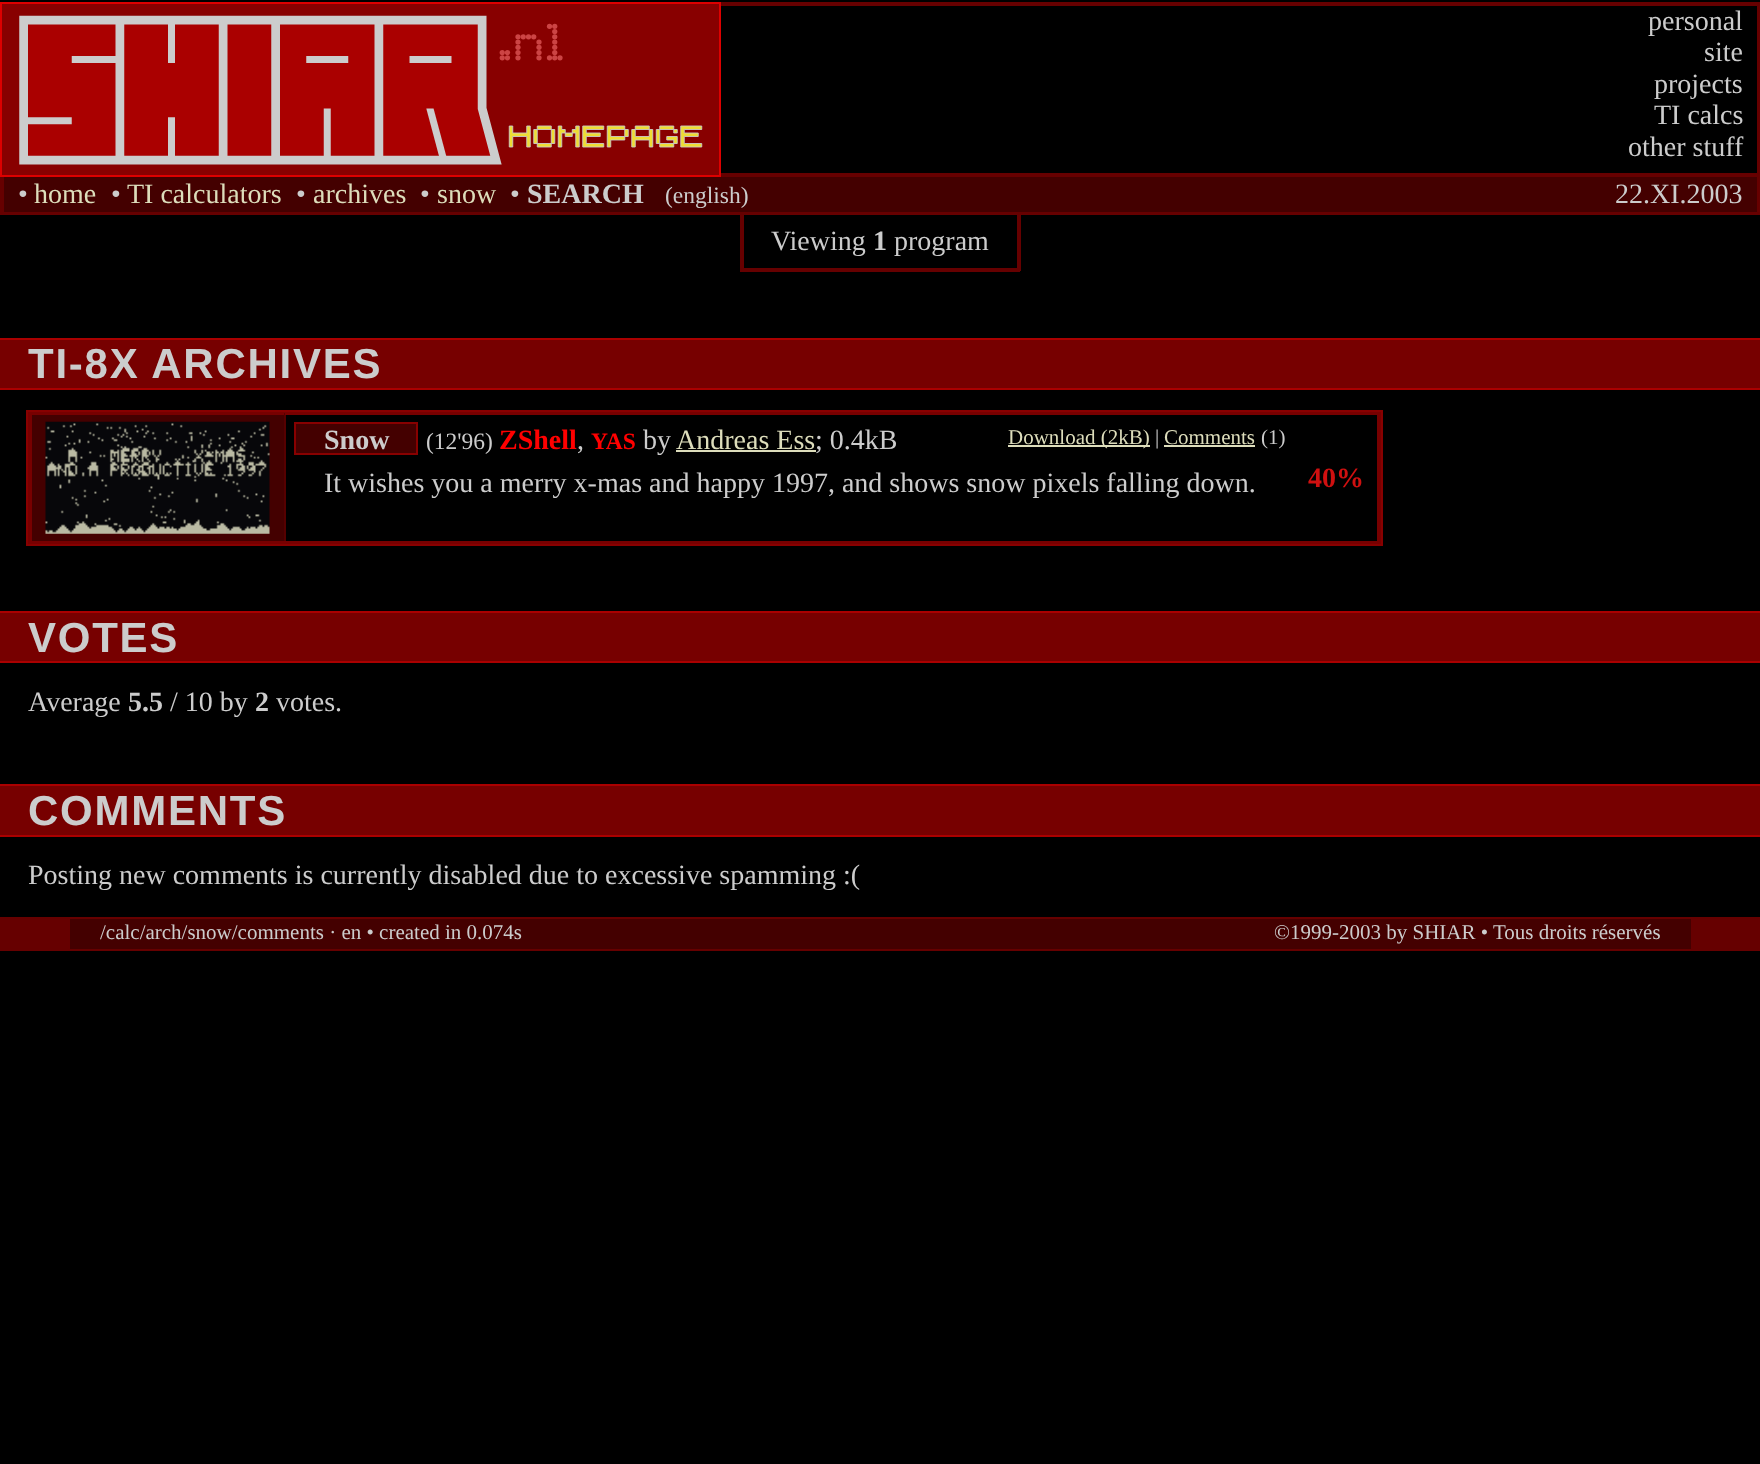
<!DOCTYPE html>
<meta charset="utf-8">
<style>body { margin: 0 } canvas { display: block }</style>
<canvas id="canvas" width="1760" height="1464"></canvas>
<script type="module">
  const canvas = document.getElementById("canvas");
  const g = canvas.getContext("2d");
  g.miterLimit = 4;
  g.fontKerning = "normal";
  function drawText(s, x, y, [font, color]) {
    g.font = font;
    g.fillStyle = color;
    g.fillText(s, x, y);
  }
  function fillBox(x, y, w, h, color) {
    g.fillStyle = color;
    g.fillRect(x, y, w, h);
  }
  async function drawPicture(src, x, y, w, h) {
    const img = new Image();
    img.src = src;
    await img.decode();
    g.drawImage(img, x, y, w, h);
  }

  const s1 = ["28px Liberation Serif", "#CCCCCC"];
  const s2 = ["28px Liberation Serif", "#DDDDBB"];
  const s3 = ["bold 28px Liberation Serif", "#CCCCCC"];
  const s4 = ["23.5px Liberation Serif", "#CCCCCC"];
  const s5 = ["bold 42px Liberation Sans", "#CCCCCC"];
  const s6 = ["bold 28px Liberation Serif", "#FF0000"];
  const s7 = ["bold 23.5px Liberation Serif", "#FF0000"];
  const s8 = ["21px Liberation Serif", "#DDDDBB"];
  const s9 = ["21px Liberation Serif", "#CCCCCC"];
  const s10 = ["bold 28px Liberation Serif", "#CF1010"];

  fillBox(0, 0, 1760, 1464, "#000000");
  g.strokeStyle = "#660000";
  g.lineWidth = 4;
  g.strokeRect(2, 4, 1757, 209);
  g.fillStyle = "#880000";
  g.beginPath();
  g.rect(1, 3, 719, 173);
  g.fill();
  g.strokeStyle = "#DD0000";
  g.lineWidth = 2;
  g.stroke();
  await drawPicture("pic1.png", 19, 15, 684, 150);
  drawText("personal", 1648, 30, s1);
  drawText("site", 1704, 61, s1);
  drawText("projects", 1654, 93, s1);
  drawText("TI calcs", 1654, 124, s1);
  drawText("other stuff", 1628, 156, s1);
  fillBox(4, 177, 1753, 35, "#440000");
  fillBox(721, 173, 1036, 4, "#660000");
  drawText("•", 18, 203, s1);
  drawText("home", 34, 203, s2);
  drawText("•", 111, 203, s1);
  drawText("TI calculators", 127, 203, s2);
  drawText("•", 296, 203, s1);
  drawText("archives", 313, 203, s2);
  drawText("•", 420, 203, s1);
  drawText("snow", 437, 203, s2);
  drawText("•", 510, 203, s1);
  drawText("SEARCH", 527, 203, s3);
  drawText("(english)", 665, 203, s4);
  drawText("22.XI.2003", 1615, 203, s1);
  fillBox(1017, 215, 4, 56, "#660000");
  fillBox(740, 268, 280, 4, "#660000");
  fillBox(740, 215, 4, 56, "#660000");
  drawText("Viewing", 771, 250, s1);
  drawText("1", 873, 250, s3);
  drawText("program", 894, 250, s1);
  g.fillStyle = "#770000";
  g.beginPath();
  g.rect(-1, 339, 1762, 50);
  g.fill();
  g.strokeStyle = "#AA0000";
  g.stroke();
  g.letterSpacing = "1.75px";
  drawText("TI-8X ARCHIVES", 28, 378, s5);
  fillBox(28, 412, 1353, 1, "#770000");
  fillBox(1377, 411, 4, 133, "#770000");
  fillBox(28, 543, 1353, 1, "#770000");
  fillBox(28, 411, 4, 133, "#770000");
  fillBox(32, 415, 252, 126, "#440000");
  fillBox(32, 413, 253, 2, "#770000");
  fillBox(284, 413, 2, 130, "#550000");
  fillBox(32, 541, 1345, 2, "#770000");
  await drawPicture("pic2.png", 45, 421, 225, 113);
  fillBox(285, 413, 1092, 2, "#770000");
  g.strokeStyle = "#880000";
  g.strokeRect(27, 411, 1355, 134);
  g.fillStyle = "#440000";
  g.beginPath();
  g.rect(295, 423, 122, 31);
  g.fill();
  g.stroke();
  g.letterSpacing = "0px";
  drawText("Snow", 324, 449, s3);
  drawText("(12'96)", 426, 449, s4);
  drawText("ZShell", 499, 449, s6);
  drawText(",", 577, 449, s1);
  drawText("YAS", 591, 449, s7);
  drawText("by", 643, 449, s1);
  drawText("Andreas Ess", 676, 449, s2);
  fillBox(676, 450, 140, 2, "#DDDDBB");
  drawText("; 0.4kB", 815, 449, s1);
  fillBox(1008, 445, 142, 2, "#DDDDBB");
  drawText("Download (2kB)", 1008, 444, s8);
  drawText("|", 1155, 444, s9);
  drawText("Comments", 1164, 444, s8);
  fillBox(1164, 445, 91, 2, "#DDDDBB");
  drawText("(1)", 1261, 444, s9);
  drawText("It wishes you a merry x-mas and happy 1997, and shows snow pixels falling down.", 324, 492, s1);
  drawText("40%", 1308, 487, s10);
  g.fillStyle = "#770000";
  g.beginPath();
  g.rect(-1, 612, 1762, 50);
  g.fill();
  g.strokeStyle = "#AA0000";
  g.stroke();
  g.letterSpacing = "1.75px";
  drawText("VOTES", 28, 652, s5);
  g.letterSpacing = "0px";
  drawText("Average", 28, 711, s1);
  drawText("5.5", 128, 711, s3);
  drawText("/ 10 by", 170, 711, s1);
  drawText("2", 255, 711, s3);
  drawText("votes.", 276, 711, s1);
  g.fillStyle = "#770000";
  g.beginPath();
  g.rect(-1, 785, 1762, 51);
  g.fill();
  g.stroke();
  g.letterSpacing = "1.75px";
  drawText("COMMENTS", 28, 825, s5);
  g.letterSpacing = "0px";
  drawText("Posting new comments is currently disabled due to excessive spamming :(", 28, 884, s1);
  fillBox(70, 919, 1621, 30, "#440000");
  fillBox(70, 917, 1621, 2, "#660000");
  fillBox(1691, 917, 69, 32, "#660000");
  fillBox(0, 949, 1760, 2, "#660000");
  fillBox(0, 917, 70, 32, "#660000");
  drawText("/calc/arch/snow/comments · en • created in 0.074s", 100, 939, s9);
  drawText("©1999-2003 by SHIAR • Tous droits réservés", 1274, 939, s9);
</script>
